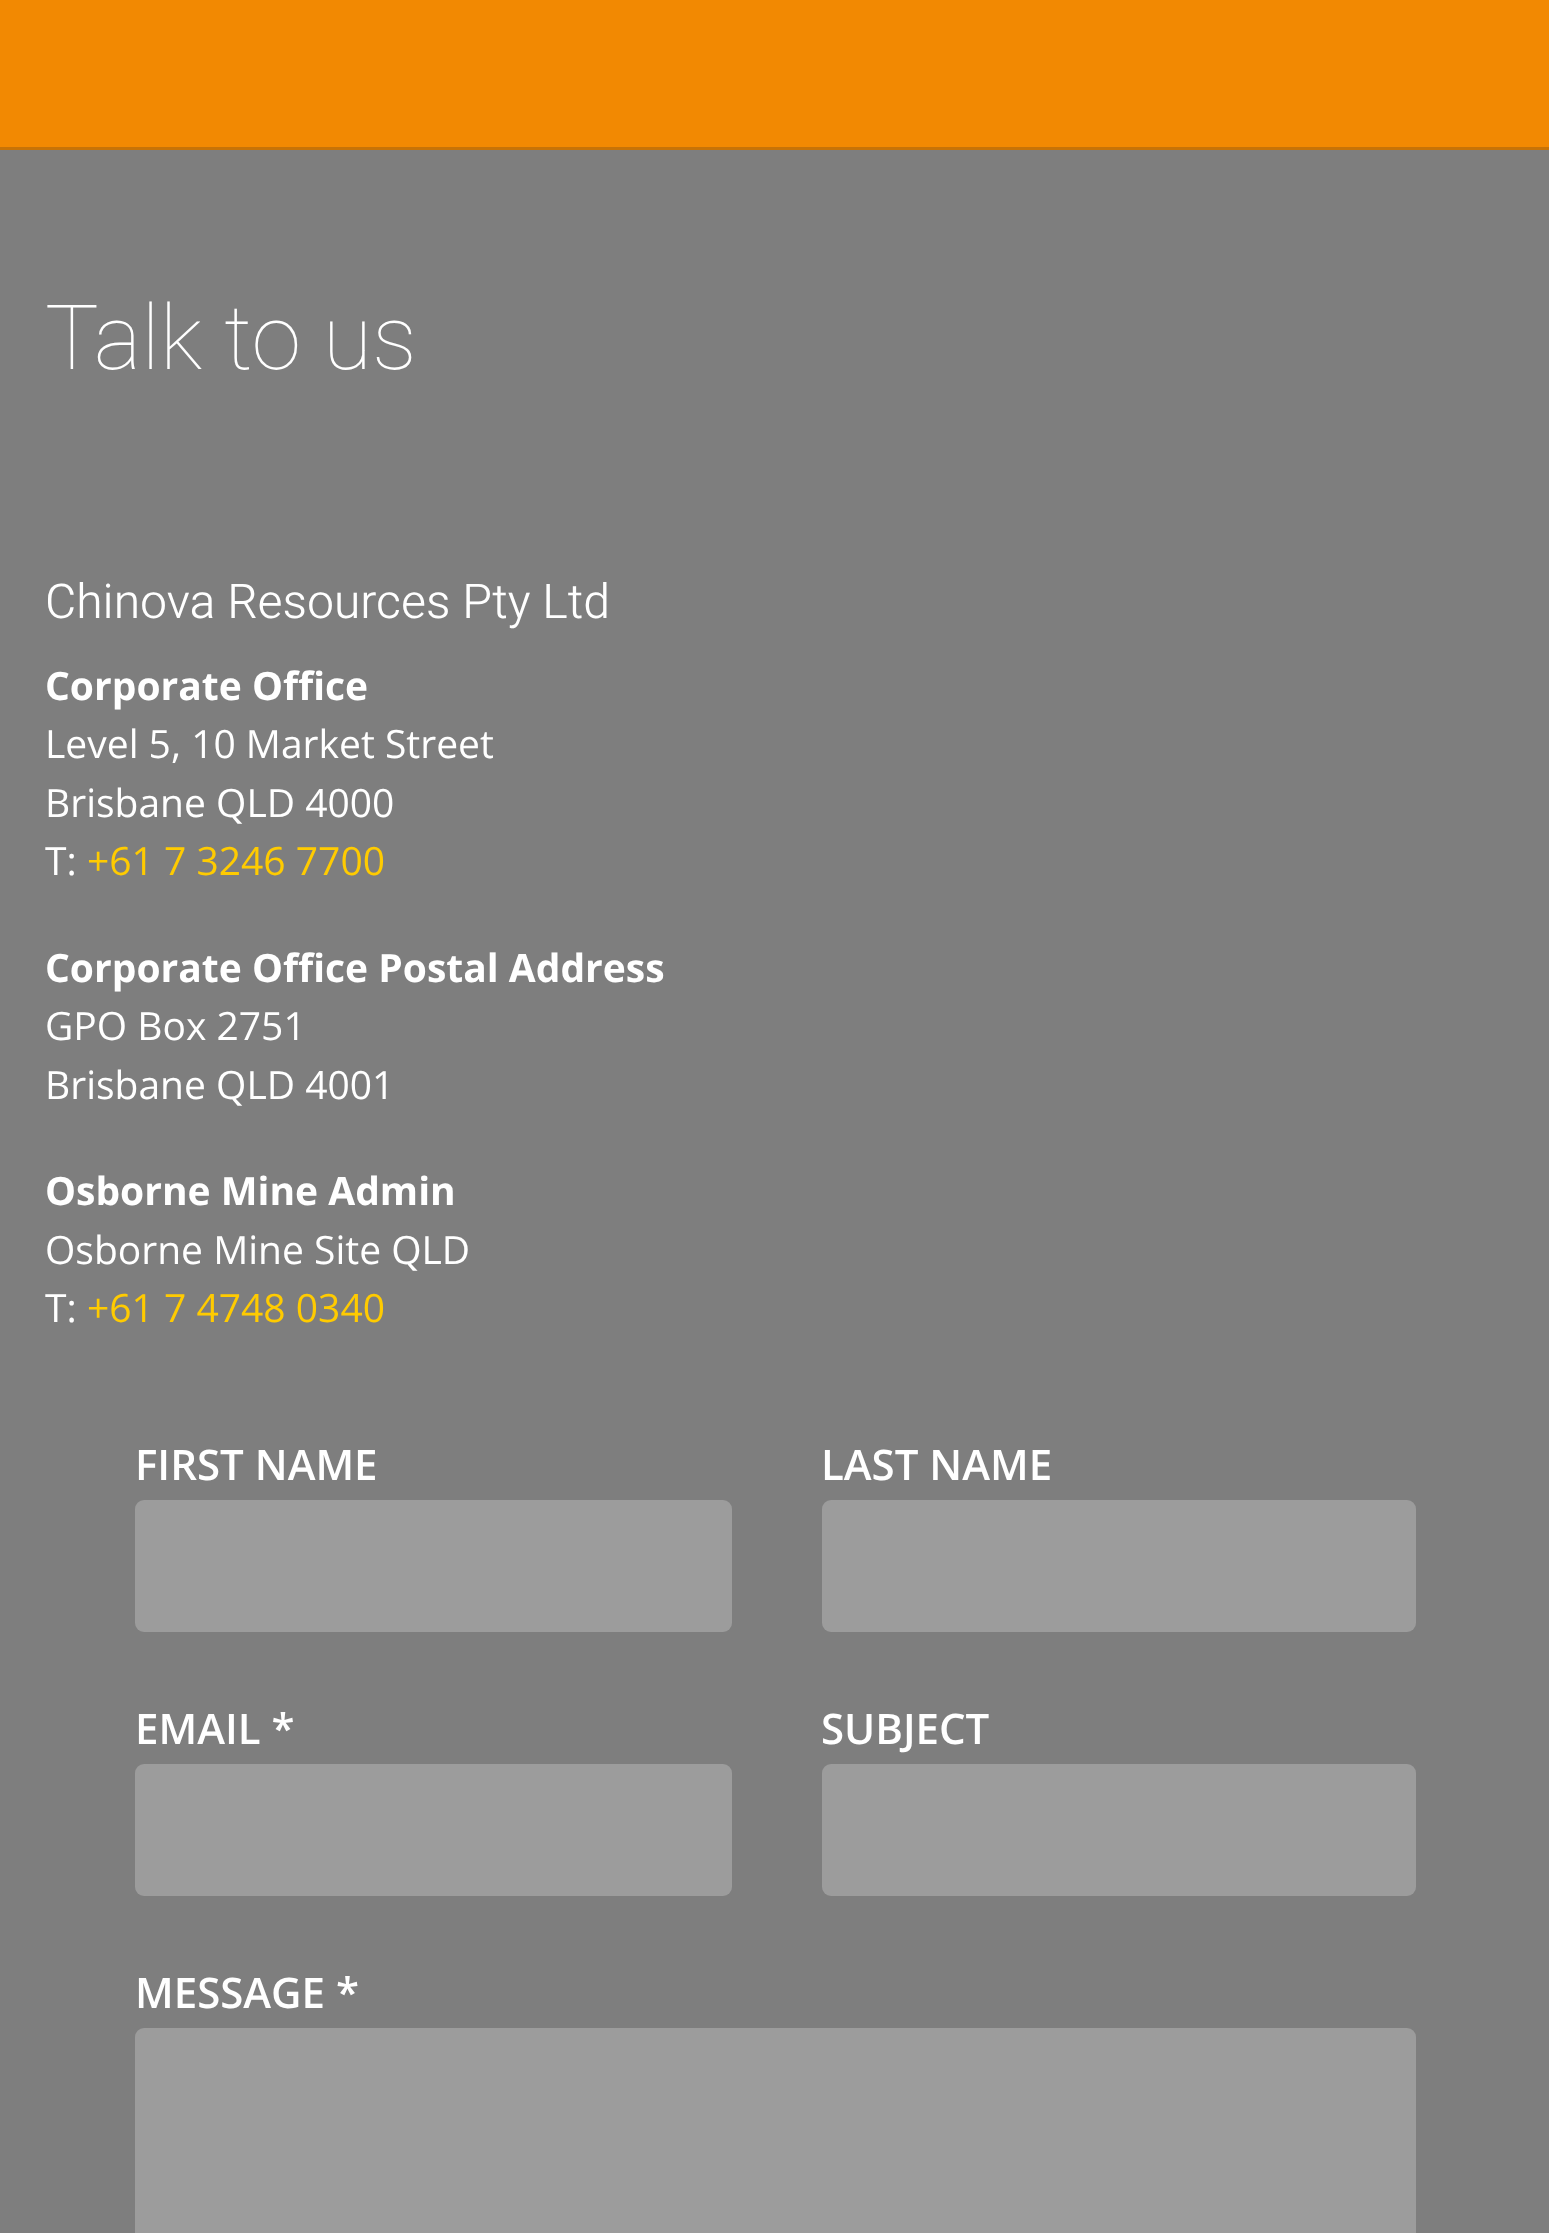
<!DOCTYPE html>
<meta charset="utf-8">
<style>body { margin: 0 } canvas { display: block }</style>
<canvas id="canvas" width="1549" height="2233"></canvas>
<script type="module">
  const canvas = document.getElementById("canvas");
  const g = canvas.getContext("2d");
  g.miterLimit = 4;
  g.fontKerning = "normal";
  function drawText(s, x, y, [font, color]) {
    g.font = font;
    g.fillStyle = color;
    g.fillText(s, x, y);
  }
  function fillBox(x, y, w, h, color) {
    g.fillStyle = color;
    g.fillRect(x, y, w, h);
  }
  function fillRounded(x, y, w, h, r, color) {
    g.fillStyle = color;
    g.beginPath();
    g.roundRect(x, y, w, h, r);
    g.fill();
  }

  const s1 = ["100 90px Heebo", "#FFFFFF"];
  const s2 = ["300 48px Heebo", "#FFFFFF"];
  const s3 = ["bold 39px Open Sans", "#FFFFFF"];
  const s4 = ["39px Open Sans", "#FFFFFF"];
  const s5 = ["39px Open Sans", "#FFCB00"];
  const s6 = ["600 42px Open Sans", "#FFFFFF"];

  fillBox(0, 0, 1549, 2233, "#7E7E7E");
  fillBox(0, 0, 1549, 147, "#F28902");
  fillBox(0, 147, 1549, 3, "#C77307");
  drawText("Talk to us", 45, 369, s1);
  drawText("Chinova Resources Pty Ltd", 45, 618, s2);
  drawText("Corporate Office", 45, 700, s3);
  drawText("Level 5, 10 Market Street", 45, 758, s4);
  drawText("Brisbane QLD 4000", 45, 817, s4);
  drawText("T:", 45, 875, s4);
  drawText("+61 7 3246 7700", 87, 875, s5);
  drawText("Corporate Office Postal Address", 45, 982, s3);
  drawText("GPO Box 2751", 45, 1040, s4);
  drawText("Brisbane QLD 4001", 45, 1099, s4);
  drawText("Osborne Mine Admin", 45, 1205, s3);
  drawText("Osborne Mine Site QLD", 45, 1264, s4);
  drawText("T:", 45, 1322, s4);
  drawText("+61 7 4748 0340", 87, 1322, s5);
  drawText("FIRST NAME", 135, 1480, s6);
  fillRounded(135, 1500, 597, 132, 9, "#9C9C9C");
  drawText("LAST NAME", 821, 1480, s6);
  fillRounded(822, 1500, 594, 132, 9, "#9C9C9C");
  drawText("EMAIL *", 135, 1744, s6);
  fillRounded(135, 1764, 597, 132, 9, "#9C9C9C");
  drawText("SUBJECT", 821, 1744, s6);
  fillRounded(822, 1764, 594, 132, 9, "#9C9C9C");
  drawText("MESSAGE *", 135, 2008, s6);
  fillRounded(135, 2028, 1281, 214, 9, "#9C9C9C");
</script>
